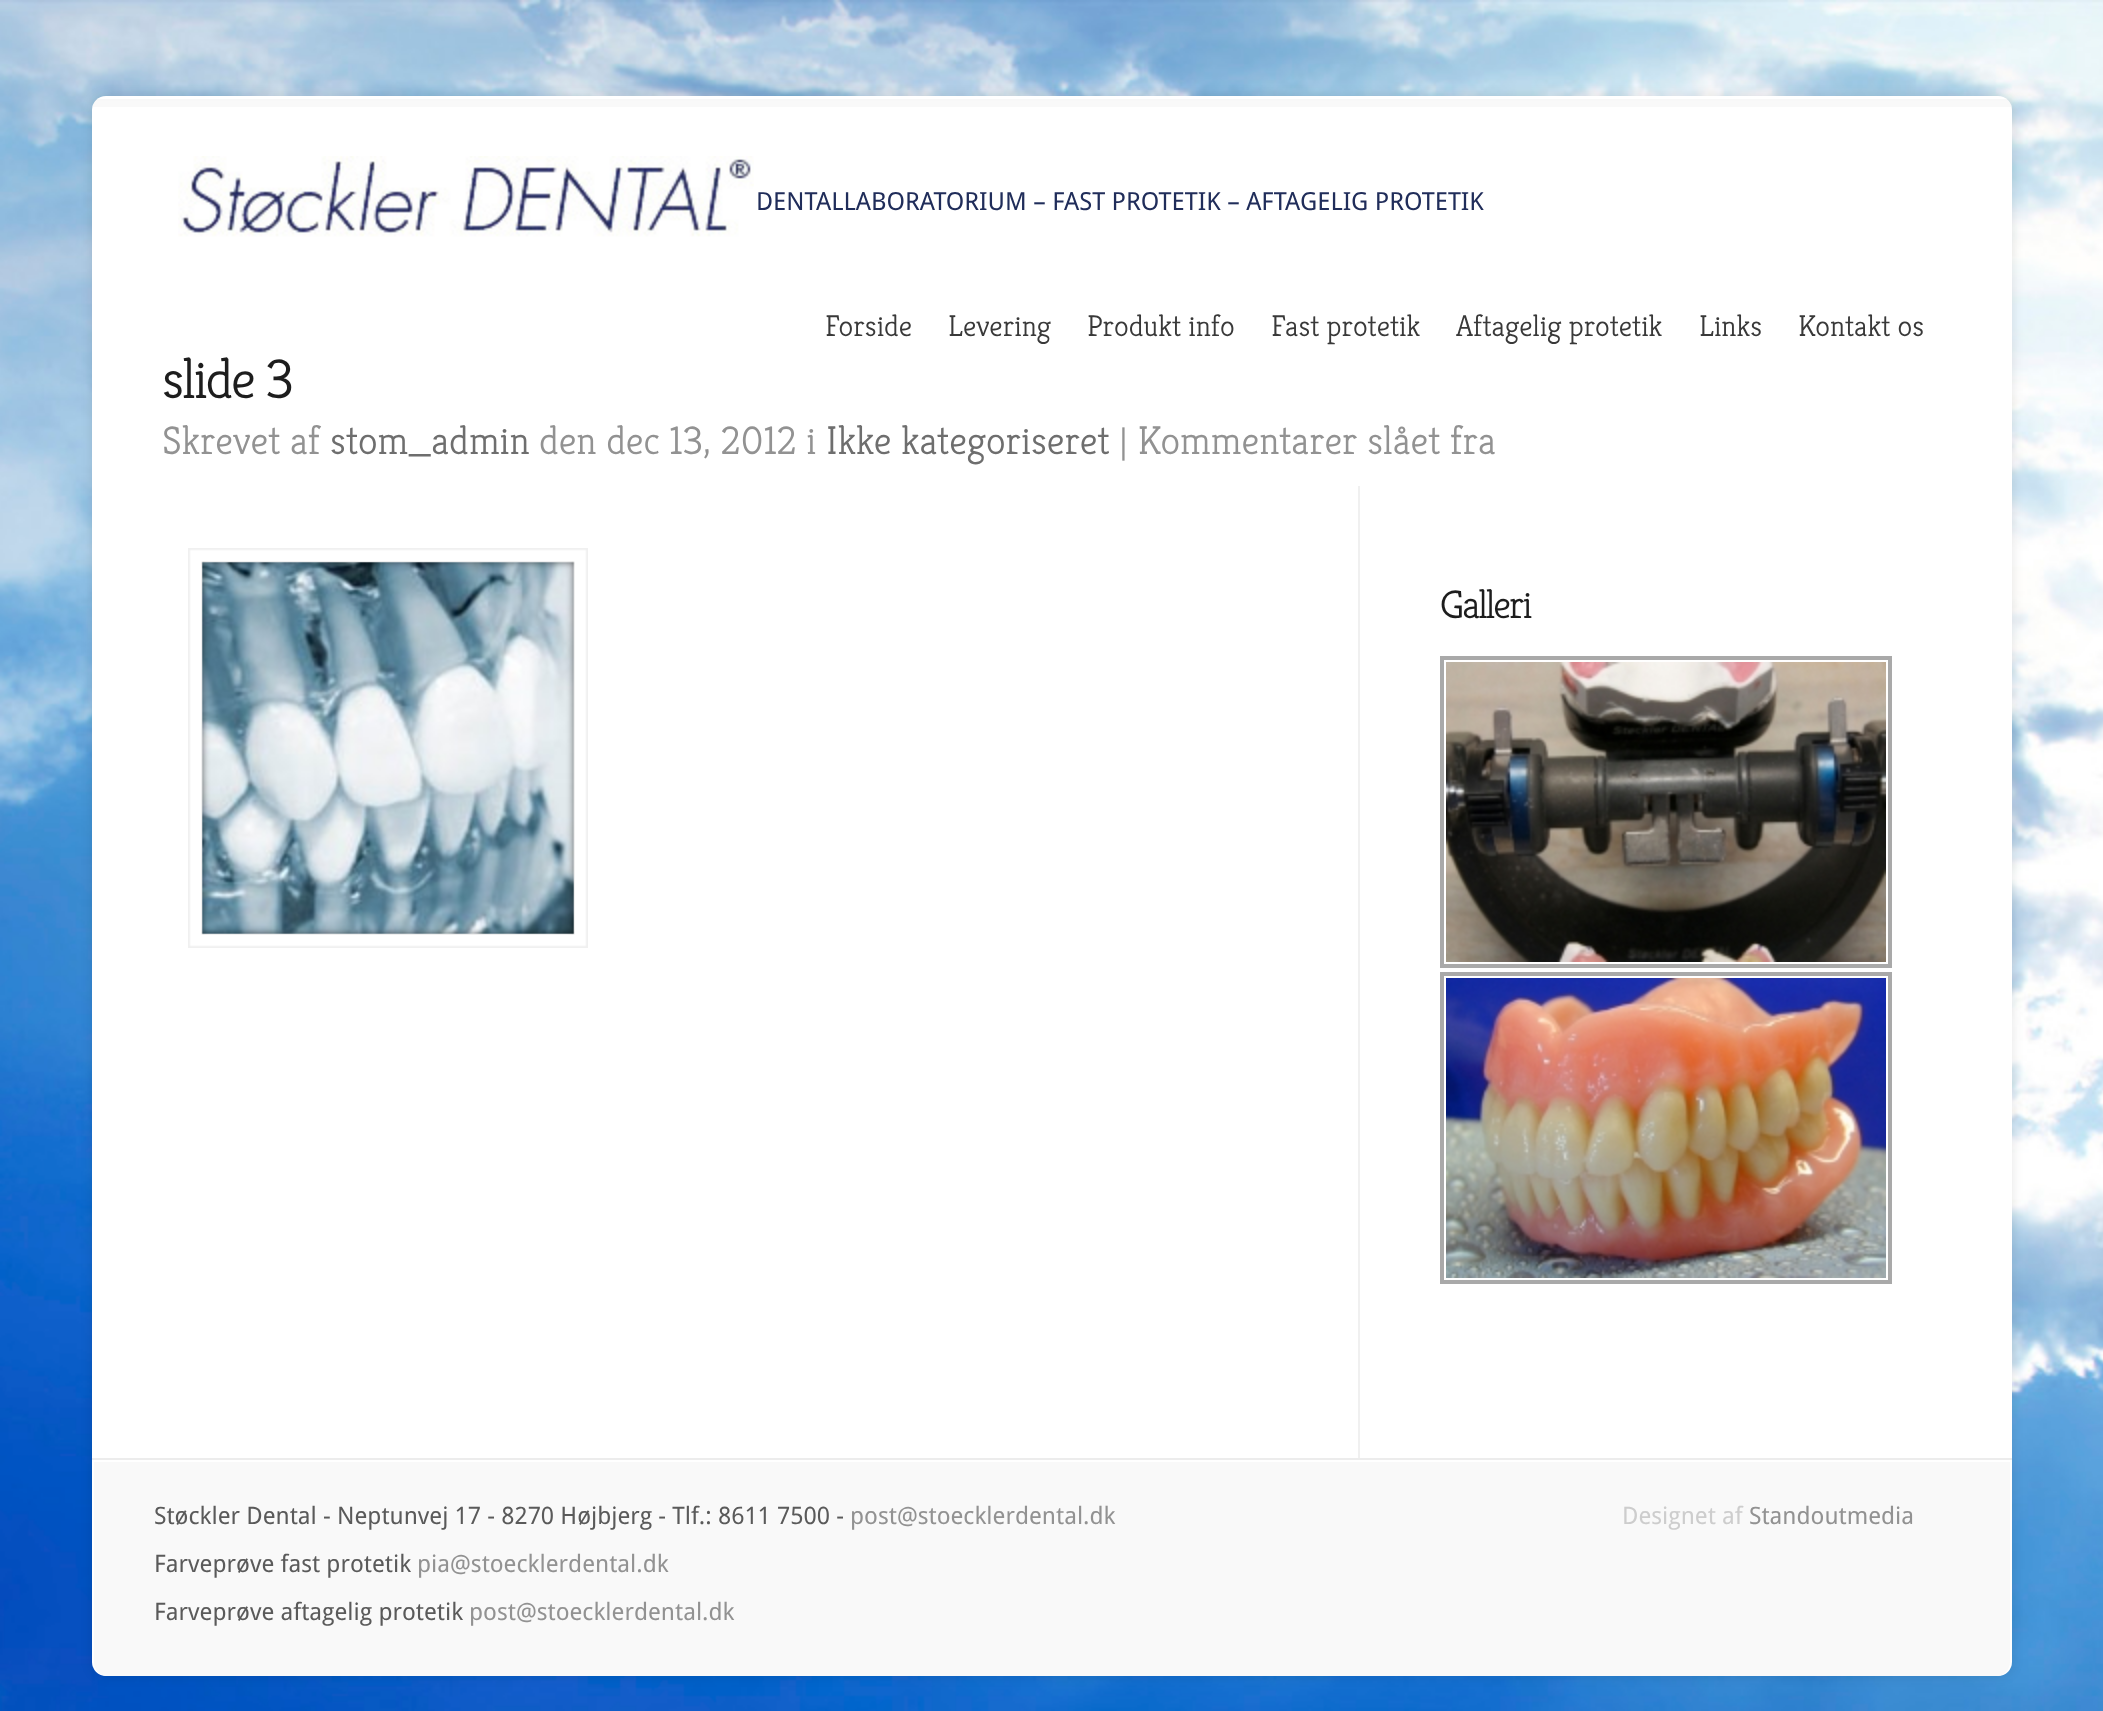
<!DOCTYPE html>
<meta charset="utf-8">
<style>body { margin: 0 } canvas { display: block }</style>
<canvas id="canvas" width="2103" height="1711"></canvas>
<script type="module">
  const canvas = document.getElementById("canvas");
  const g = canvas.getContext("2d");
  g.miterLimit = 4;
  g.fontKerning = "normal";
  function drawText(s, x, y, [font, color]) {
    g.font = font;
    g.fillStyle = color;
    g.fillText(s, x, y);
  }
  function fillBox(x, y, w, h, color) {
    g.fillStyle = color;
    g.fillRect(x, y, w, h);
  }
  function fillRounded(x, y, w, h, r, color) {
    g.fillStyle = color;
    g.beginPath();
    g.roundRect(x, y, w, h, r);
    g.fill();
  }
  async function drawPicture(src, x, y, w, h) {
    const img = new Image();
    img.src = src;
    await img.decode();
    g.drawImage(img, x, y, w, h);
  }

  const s1 = ["25px Droid Sans", "#202D5A"];
  const s2 = ["300 30px Kreon", "#393939"];
  const s3 = ["300 56px Kreon", "#1D1D1D"];
  const s4 = ["300 40px Kreon", "#929292"];
  const s5 = ["300 40px Kreon", "#6E6E6E"];
  const s6 = ["300 40px Kreon", "#1D1D1D"];
  const s7 = ["24px Droid Sans", "#5A5A5A"];
  const s8 = ["24px Droid Sans", "#929292"];
  const s9 = ["24px Droid Sans", "#CDCDCD"];

  fillBox(0, 0, 2103, 1711, "#FFFFFF");
  await drawPicture("pic1.png", 0, 0, 2103, 1711);
  g.fillStyle = "rgba(0, 0, 0, 0.1)";
  g.filter = "blur(6px)";
  g.beginPath();
  g.roundRect(92, 96, 1920, 1580, 14);
  g.fill();
  g.filter = "none";
  fillRounded(92, 96, 1920, 1580, 14, "#FFFFFF");
  await drawPicture("pic2.png", 93, 99, 1918, 8);
  await drawPicture("pic3.png", 178, 156, 576, 81);
  drawText("DENTALLABORATORIUM – FAST PROTETIK – AFTAGELIG PROTETIK", 756, 210, s1);
  drawText("Forside", 825, 336, s2);
  drawText("Levering", 948, 336, s2);
  drawText("Produkt info", 1087, 336, s2);
  drawText("Fast protetik", 1271, 336, s2);
  drawText("Aftagelig protetik", 1456, 336, s2);
  drawText("Links", 1699, 336, s2);
  drawText("Kontakt os", 1798, 336, s2);
  g.letterSpacing = "-2px";
  drawText("slide 3", 162, 398, s3);
  g.letterSpacing = "0px";
  drawText("Skrevet af", 162, 454, s4);
  drawText("stom_admin", 330, 454, s5);
  drawText("den dec 13, 2012 i", 539, 454, s4);
  drawText("Ikke kategoriseret", 826, 454, s5);
  drawText("| Kommentarer slået fra", 1119, 454, s4);
  fillBox(1358, 486, 2, 972, "#F0F0F0");
  await drawPicture("pic5.png", 202, 562, 372, 372);
  await drawPicture("pic4.png", 188, 548, 400, 400);
  g.letterSpacing = "-2px";
  drawText("Galleri", 1440, 618, s6);
  g.strokeStyle = "#A9A9A9";
  g.lineWidth = 4;
  g.strokeRect(1442, 658, 448, 308);
  await drawPicture("pic6.png", 1446, 662, 440, 300);
  g.strokeRect(1442, 974, 448, 308);
  await drawPicture("pic7.png", 1446, 978, 440, 300);
  fillBox(92, 1458, 1920, 2, "#ECECEC");
  g.fillStyle = "#F9F9F9";
  g.beginPath();
  g.roundRect(94, 1462, 1916, 214, [0, 0, 14, 14]);
  g.fill();
  g.letterSpacing = "0px";
  drawText("Støckler Dental - Neptunvej 17 - 8270 Højbjerg - Tlf.: 8611 7500 -", 154, 1524, s7);
  drawText("post@stoecklerdental.dk", 850, 1524, s8);
  drawText("Farveprøve fast protetik", 154, 1572, s7);
  drawText("pia@stoecklerdental.dk", 417, 1572, s8);
  drawText("Farveprøve aftagelig protetik", 154, 1620, s7);
  drawText("post@stoecklerdental.dk", 469, 1620, s8);
  drawText("Designet af", 1622, 1524, s9);
  drawText("Standoutmedia", 1749, 1524, s8);
</script>
